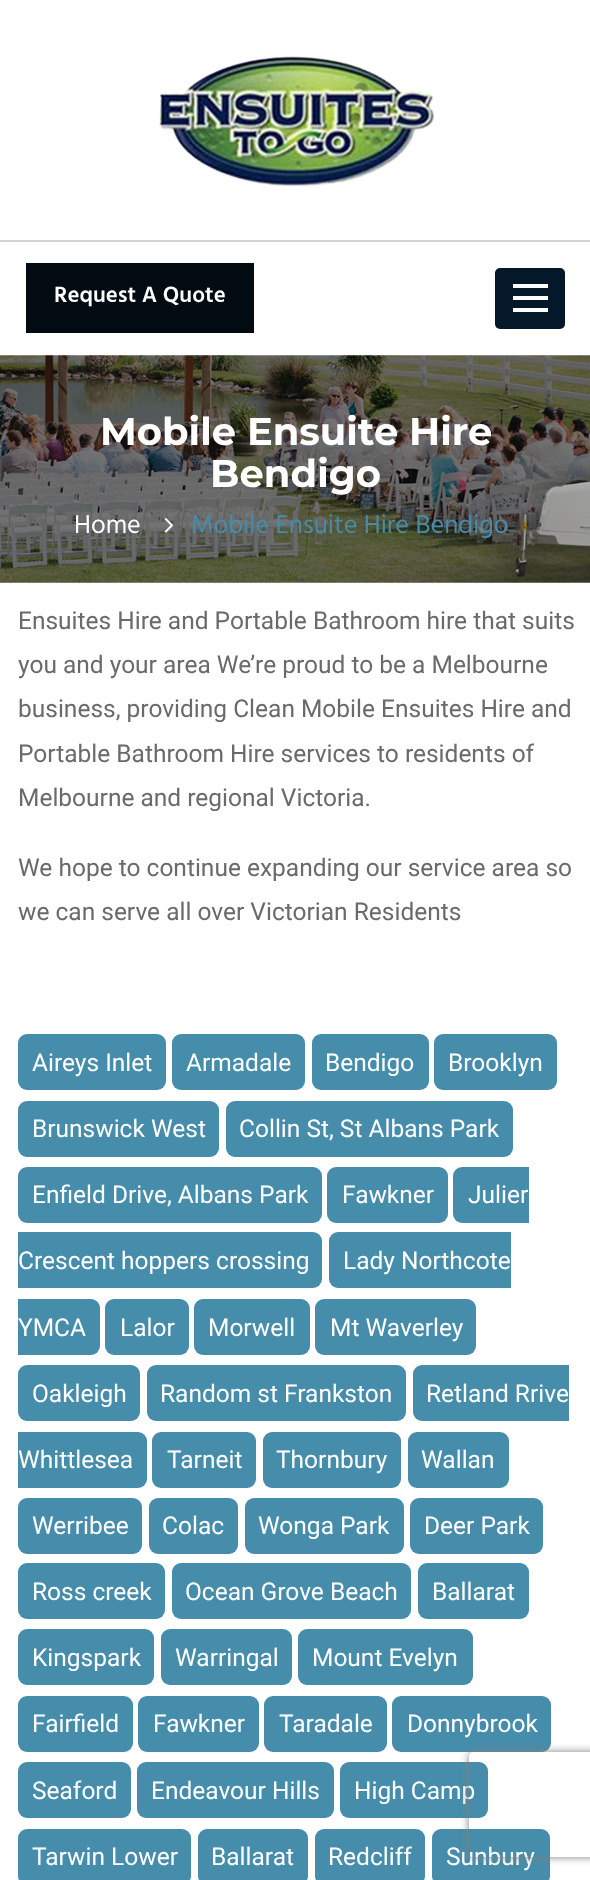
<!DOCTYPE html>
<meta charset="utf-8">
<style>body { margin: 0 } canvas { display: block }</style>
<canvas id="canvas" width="590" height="1880"></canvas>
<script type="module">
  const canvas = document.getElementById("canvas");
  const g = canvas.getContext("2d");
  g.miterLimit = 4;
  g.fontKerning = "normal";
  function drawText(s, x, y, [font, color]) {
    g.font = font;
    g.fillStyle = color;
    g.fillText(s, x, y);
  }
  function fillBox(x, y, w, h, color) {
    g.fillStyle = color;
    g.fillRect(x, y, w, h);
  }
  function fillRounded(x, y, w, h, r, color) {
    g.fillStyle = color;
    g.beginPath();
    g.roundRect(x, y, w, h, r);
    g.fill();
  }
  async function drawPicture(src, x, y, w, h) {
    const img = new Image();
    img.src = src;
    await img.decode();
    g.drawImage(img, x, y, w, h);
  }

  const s1 = ["600 22.75px Hind", "#FFFFFF"];
  const s2 = ["bold 38.5px Montserrat", "#FFFFFF"];
  const s3 = ["26.25px Hind", "#FFFFFF"];
  const s4 = ["26.25px Hind", "#468DAB"];
  const s5 = ["24.5px Roboto", "#6A6A6A"];
  const s6 = ["24.5px Roboto", "#FFFFFF"];

  fillBox(0, 0, 590, 1880, "#FFFFFF");
  fillBox(0, 240, 590, 2, "#D4D2D2");
  await drawPicture("pic1.png", 158, 56, 277, 131);
  fillBox(26, 263, 228, 70, "#020B12");
  drawText("Request A Quote", 54, 302, s1);
  fillRounded(495, 268, 70, 61, 5, "#051829");
  fillBox(513, 284, 35, 4, "#FFFFFF");
  fillBox(513, 296, 35, 4, "#FFFFFF");
  fillBox(513, 308, 35, 4, "#FFFFFF");
  await drawPicture("pic2.png", 0, 355, 590, 228);
  drawText("Mobile Ensuite Hire", 100, 445, s2);
  drawText("Bendigo", 210, 487, s2);
  drawText("Home", 74, 533, s3);
  await drawPicture("pic3.png", 164, 518, 10, 15);
  drawText("Mobile Ensuite Hire Bendigo", 191, 533, s4);
  drawText("Ensuites Hire and Portable Bathroom hire that suits", 18, 629, s5);
  drawText("you and your area We’re proud to be a Melbourne", 18, 673, s5);
  drawText("business, providing Clean Mobile Ensuites Hire and", 18, 717, s5);
  drawText("Portable Bathroom Hire services to residents of", 18, 762, s5);
  drawText("Melbourne and regional Victoria.", 18, 806, s5);
  drawText("We hope to continue expanding our service area so", 18, 876, s5);
  drawText("we can serve all over Victorian Residents", 18, 920, s5);
  fillRounded(18, 1034, 148, 56, 9, "#468DAB");
  drawText("Aireys Inlet", 32, 1071, s6);
  fillRounded(172, 1034, 133, 56, 9, "#468DAB");
  drawText("Armadale", 186, 1071, s6);
  fillRounded(312, 1034, 117, 56, 9, "#468DAB");
  drawText("Bendigo", 325, 1071, s6);
  fillRounded(434, 1034, 123, 56, 9, "#468DAB");
  drawText("Brooklyn", 448, 1071, s6);
  fillRounded(18, 1101, 201, 56, 9, "#468DAB");
  drawText("Brunswick West", 32, 1137, s6);
  fillRounded(226, 1101, 287, 56, 9, "#468DAB");
  drawText("Collin St, St Albans Park", 239, 1137, s6);
  fillRounded(18, 1167, 304, 56, 9, "#468DAB");
  drawText("Enfield Drive, Albans Park", 32, 1203, s6);
  fillRounded(327, 1167, 121, 56, 9, "#468DAB");
  drawText("Fawkner", 342, 1203, s6);
  g.fillStyle = "#468DAB";
  g.beginPath();
  g.roundRect(453, 1167, 76, 56, [9, 0, 0, 9]);
  g.fill();
  drawText("Julier", 468, 1203, s6);
  g.fillStyle = "#468DAB";
  g.beginPath();
  g.roundRect(18, 1232, 304, 56, [0, 9, 9, 0]);
  g.fill();
  drawText("Crescent hoppers crossing", 18, 1269, s6);
  g.fillStyle = "#468DAB";
  g.beginPath();
  g.roundRect(329, 1232, 182, 56, [9, 0, 0, 9]);
  g.fill();
  drawText("Lady Northcote", 343, 1269, s6);
  g.fillStyle = "#468DAB";
  g.beginPath();
  g.roundRect(18, 1299, 82, 56, [0, 9, 9, 0]);
  g.fill();
  drawText("YMCA", 18, 1336, s6);
  fillRounded(105, 1299, 84, 56, 9, "#468DAB");
  drawText("Lalor", 120, 1336, s6);
  fillRounded(194, 1299, 116, 56, 9, "#468DAB");
  drawText("Morwell", 208, 1336, s6);
  fillRounded(315, 1299, 161, 56, 9, "#468DAB");
  drawText("Mt Waverley", 330, 1336, s6);
  fillRounded(18, 1365, 122, 56, 9, "#468DAB");
  drawText("Oakleigh", 32, 1402, s6);
  fillRounded(147, 1365, 259, 56, 9, "#468DAB");
  drawText("Random st Frankston", 160, 1402, s6);
  g.fillStyle = "#468DAB";
  g.beginPath();
  g.roundRect(413, 1365, 156, 56, [9, 0, 0, 9]);
  g.fill();
  drawText("Retland Rrive", 426, 1402, s6);
  g.fillStyle = "#468DAB";
  g.beginPath();
  g.roundRect(18, 1432, 129, 56, [0, 9, 9, 0]);
  g.fill();
  drawText("Whittlesea", 18, 1468, s6);
  fillRounded(152, 1432, 104, 56, 9, "#468DAB");
  drawText("Tarneit", 167, 1468, s6);
  fillRounded(263, 1432, 138, 56, 9, "#468DAB");
  drawText("Thornbury", 276, 1468, s6);
  fillRounded(408, 1432, 101, 56, 9, "#468DAB");
  drawText("Wallan", 421, 1468, s6);
  fillRounded(18, 1498, 124, 56, 9, "#468DAB");
  drawText("Werribee", 32, 1534, s6);
  fillRounded(149, 1498, 89, 56, 9, "#468DAB");
  drawText("Colac", 162, 1534, s6);
  fillRounded(245, 1498, 159, 56, 9, "#468DAB");
  drawText("Wonga Park", 258, 1534, s6);
  fillRounded(410, 1498, 133, 56, 9, "#468DAB");
  drawText("Deer Park", 424, 1534, s6);
  fillRounded(18, 1563, 147, 56, 9, "#468DAB");
  drawText("Ross creek", 32, 1600, s6);
  fillRounded(172, 1563, 239, 56, 9, "#468DAB");
  drawText("Ocean Grove Beach", 185, 1600, s6);
  fillRounded(418, 1563, 111, 56, 9, "#468DAB");
  drawText("Ballarat", 432, 1600, s6);
  fillRounded(18, 1629, 136, 56, 9, "#468DAB");
  drawText("Kingspark", 32, 1666, s6);
  fillRounded(161, 1629, 131, 56, 9, "#468DAB");
  drawText("Warringal", 175, 1666, s6);
  fillRounded(298, 1629, 175, 56, 9, "#468DAB");
  drawText("Mount Evelyn", 312, 1666, s6);
  fillRounded(18, 1696, 115, 56, 9, "#468DAB");
  drawText("Fairfield", 32, 1732, s6);
  fillRounded(138, 1696, 121, 56, 9, "#468DAB");
  drawText("Fawkner", 153, 1732, s6);
  fillRounded(264, 1696, 123, 56, 9, "#468DAB");
  drawText("Taradale", 279, 1732, s6);
  fillRounded(392, 1696, 159, 56, 9, "#468DAB");
  drawText("Donnybrook", 407, 1732, s6);
  fillRounded(18, 1762, 113, 56, 9, "#468DAB");
  drawText("Seaford", 32, 1799, s6);
  fillRounded(137, 1762, 197, 56, 9, "#468DAB");
  drawText("Endeavour Hills", 151, 1799, s6);
  fillRounded(340, 1762, 148, 56, 9, "#468DAB");
  drawText("High Camp", 354, 1799, s6);
  fillRounded(18, 1829, 173, 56, 9, "#468DAB");
  drawText("Tarwin Lower", 32, 1865, s6);
  fillRounded(198, 1829, 110, 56, 9, "#468DAB");
  drawText("Ballarat", 211, 1865, s6);
  fillRounded(315, 1829, 110, 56, 9, "#468DAB");
  drawText("Redcliff", 328, 1865, s6);
  fillRounded(432, 1829, 118, 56, 9, "#468DAB");
  drawText("Sunbury", 446, 1865, s6);
  g.save();
  g.beginPath();
  g.moveTo(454, 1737);
  g.lineTo(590, 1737);
  g.lineTo(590, 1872);
  g.lineTo(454, 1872);
  g.closePath();
  g.moveTo(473, 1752);
  g.lineTo(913, 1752);
  g.bezierCurveTo(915, 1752, 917, 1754, 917, 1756);
  g.lineTo(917, 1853);
  g.bezierCurveTo(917, 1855, 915, 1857, 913, 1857);
  g.lineTo(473, 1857);
  g.bezierCurveTo(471, 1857, 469, 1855, 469, 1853);
  g.lineTo(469, 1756);
  g.bezierCurveTo(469, 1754, 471, 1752, 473, 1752);
  g.closePath();
  g.clip("evenodd");
  g.fillStyle = "#808080";
  g.filter = "blur(4.5px)";
  g.beginPath();
  g.roundRect(469, 1752, 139, 105, 4);
  g.fill();
  g.filter = "none";
  g.restore();
</script>
